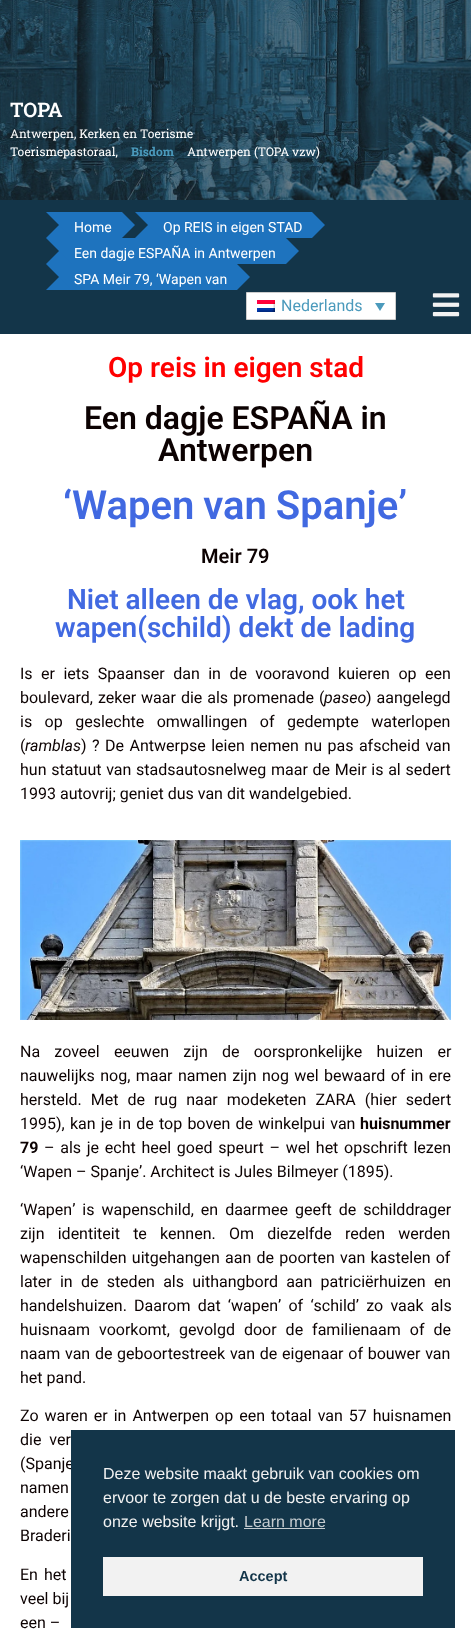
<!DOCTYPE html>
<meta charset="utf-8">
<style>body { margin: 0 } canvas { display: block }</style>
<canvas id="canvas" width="471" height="1644"></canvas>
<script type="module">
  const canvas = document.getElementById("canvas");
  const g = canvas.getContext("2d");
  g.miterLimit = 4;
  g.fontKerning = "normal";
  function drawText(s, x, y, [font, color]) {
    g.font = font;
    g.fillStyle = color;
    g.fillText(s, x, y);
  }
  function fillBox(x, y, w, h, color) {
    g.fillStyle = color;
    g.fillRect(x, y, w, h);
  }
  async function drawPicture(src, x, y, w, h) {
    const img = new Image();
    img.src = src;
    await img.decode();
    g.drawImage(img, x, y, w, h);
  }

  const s1 = ["600 20px Roboto Slab", "#FFFFFF"];
  const s2 = ["12px Roboto Slab", "#FFFFFF"];
  const s3 = ["bold 12px Roboto Slab", "#4B9ABC"];
  const s4 = ["14px Roboto", "#FFFFFF"];
  const s5 = ["16px Roboto", "#4B9ABC"];
  const s6 = ["600 28px Roboto", "#FF0000"];
  const s7 = ["600 32px Roboto", "#0C0202"];
  const s8 = ["600 40px Roboto", "#4169E1"];
  const s9 = ["600 20px Roboto", "#0C0202"];
  const s10 = ["600 28px Roboto", "#4169E1"];
  const s11 = ["16px Roboto", "#0C0202"];
  const s12 = ["italic 16px Roboto", "#0C0202"];
  const s13 = ["bold 16px Roboto", "#0C0202"];
  const s14 = ["16px Liberation Sans", "#F2F2F2"];
  const s15 = ["16px Liberation Sans", "#C5CCD0"];
  const s16 = ["bold 14.5px Liberation Sans", "#133549"];

  fillBox(0, 0, 471, 1644, "#FFFFFF");
  await drawPicture("pic1.png", 0, 0, 471, 200);
  drawText("TOPA", 10, 117, s1);
  drawText("Antwerpen, Kerken en Toerisme", 10, 138, s2);
  drawText("Toerismepastoraal,", 10, 156, s2);
  fillBox(121, 142, 63, 18, "rgba(0, 0, 0, 0.1)");
  drawText("Bisdom", 131, 156, s3);
  drawText("Antwerpen (TOPA vzw)", 187, 156, s2);
  fillBox(0, 200, 471, 134, "#133549");
  fillBox(72, 212, 50, 26, "#1E73BE");
  g.beginPath();
  g.moveTo(46, 212);
  g.lineTo(72, 212);
  g.lineTo(59, 225);
  g.closePath();
  g.fill();
  fillBox(59, 212, 13, 26, "#1E73BE");
  g.beginPath();
  g.moveTo(72, 238);
  g.lineTo(46, 238);
  g.lineTo(59, 225);
  g.closePath();
  g.fill();
  drawText("Home", 74, 232, s4);
  g.fillStyle = "#1E73BE";
  g.beginPath();
  g.moveTo(122, 238);
  g.lineTo(122, 212);
  g.lineTo(135, 225);
  g.closePath();
  g.fill();
  fillBox(161, 212, 151, 26, "#1E73BE");
  g.beginPath();
  g.moveTo(135, 212);
  g.lineTo(161, 212);
  g.lineTo(148, 225);
  g.closePath();
  g.fill();
  fillBox(148, 212, 13, 26, "#1E73BE");
  g.beginPath();
  g.moveTo(161, 238);
  g.lineTo(135, 238);
  g.lineTo(148, 225);
  g.closePath();
  g.fill();
  drawText("Op REIS in eigen STAD", 163, 232, s4);
  g.fillStyle = "#1E73BE";
  g.beginPath();
  g.moveTo(312, 238);
  g.lineTo(312, 212);
  g.lineTo(325, 225);
  g.closePath();
  g.fill();
  fillBox(72, 238, 214, 26, "#1E73BE");
  g.beginPath();
  g.moveTo(46, 238);
  g.lineTo(72, 238);
  g.lineTo(59, 251);
  g.closePath();
  g.fill();
  fillBox(59, 238, 13, 26, "#1E73BE");
  g.beginPath();
  g.moveTo(72, 264);
  g.lineTo(46, 264);
  g.lineTo(59, 251);
  g.closePath();
  g.fill();
  drawText("Een dagje ESPAÑA in Antwerpen", 74, 258, s4);
  g.fillStyle = "#1E73BE";
  g.beginPath();
  g.moveTo(286, 264);
  g.lineTo(286, 238);
  g.lineTo(299, 251);
  g.closePath();
  g.fill();
  fillBox(72, 264, 165, 26, "#1E73BE");
  g.beginPath();
  g.moveTo(46, 264);
  g.lineTo(72, 264);
  g.lineTo(59, 277);
  g.closePath();
  g.fill();
  fillBox(59, 264, 13, 26, "#1E73BE");
  g.beginPath();
  g.moveTo(72, 290);
  g.lineTo(46, 290);
  g.lineTo(59, 277);
  g.closePath();
  g.fill();
  drawText("SPA Meir 79, ‘Wapen van", 74, 284, s4);
  g.fillStyle = "#1E73BE";
  g.beginPath();
  g.moveTo(237, 290);
  g.lineTo(237, 264);
  g.lineTo(250, 277);
  g.closePath();
  g.fill();
  g.fillStyle = "#FFFFFF";
  g.beginPath();
  g.rect(246.5, 292.5, 149, 27);
  g.fill();
  g.strokeStyle = "#CDCDCD";
  g.stroke();
  await drawPicture("pic2.png", 257, 300, 18, 12);
  drawText("Nederlands", 281, 311, s5);
  g.beginPath();
  g.moveTo(375, 303);
  g.lineTo(385, 303);
  g.lineTo(380, 311);
  g.closePath();
  g.fill();
  await drawPicture("pic3.png", 432, 293, 28, 24);
  drawText("Op reis in eigen stad", 108, 377, s6);
  drawText("Een dagje ESPAÑA in", 84, 429, s7);
  drawText("Antwerpen", 158, 461, s7);
  g.wordSpacing = "-1px";
  drawText("‘Wapen van Spanje’", 63, 519, s8);
  g.wordSpacing = "0px";
  drawText("Meir 79", 201, 563, s9);
  drawText("Niet alleen de vlag, ook het", 67, 609, s10);
  drawText("wapen(schild) dekt de lading", 55, 637, s10);
  g.wordSpacing = "4.5px";
  drawText("Is er iets Spaanser dan in de vooravond kuieren op een", 20, 679, s11);
  g.wordSpacing = "1px";
  drawText("boulevard, zeker waar die als promenade (", 20, 703, s11);
  g.wordSpacing = "0px";
  drawText("paseo", 324, 703, s12);
  g.wordSpacing = "1px";
  drawText(") aangelegd", 366, 703, s11);
  g.wordSpacing = "8.5px";
  drawText("is op geslechte omwallingen of gedempte waterlopen", 20, 727, s11);
  g.wordSpacing = "0px";
  drawText("(", 20, 751, s11);
  drawText("ramblas", 25, 751, s12);
  g.wordSpacing = "1.5px";
  drawText(") ? De Antwerpse leien nemen nu pas afscheid van", 81, 751, s11);
  g.wordSpacing = "0.75px";
  drawText("hun statuut van stadsautosnelweg maar de Meir is al sedert", 20, 775, s11);
  g.wordSpacing = "0px";
  drawText("1993 autovrij; geniet dus van dit wandelgebied.", 20, 799, s11);
  await drawPicture("pic4.png", 20, 840, 431, 180);
  g.wordSpacing = "10.25px";
  drawText("Na zoveel eeuwen zijn de oorspronkelijke huizen er", 20, 1057, s11);
  g.wordSpacing = "1.4px";
  drawText("nauwelijks nog, maar namen zijn nog wel bewaard of in ere", 20, 1081, s11);
  g.wordSpacing = "5px";
  drawText("hersteld. Met de rug naar modeketen ZARA (hier sedert", 20, 1105, s11);
  g.wordSpacing = "1.25px";
  drawText("1995), kan je in de top boven de winkelpui van", 20, 1129, s11);
  g.wordSpacing = "0px";
  drawText("huisnummer", 360, 1129, s13);
  drawText("79", 20, 1153, s13);
  g.wordSpacing = "1.75px";
  drawText("– als je echt heel goed speurt – wel het opschrift lezen", 44, 1153, s11);
  g.wordSpacing = "0px";
  drawText("‘Wapen – Spanje’. Architect is Jules Bilmeyer (1895).", 20, 1177, s11);
  g.wordSpacing = "3px";
  drawText("‘Wapen’ is wapenschild, en daarmee geeft de schilddrager", 20, 1215, s11);
  g.wordSpacing = "9.25px";
  drawText("zijn identiteit te kennen. Om diezelfde reden werden", 20, 1239, s11);
  g.wordSpacing = "1.25px";
  drawText("wapenschilden uitgehangen aan de poorten van kastelen of", 20, 1263, s11);
  g.wordSpacing = "4.25px";
  drawText("later in de steden als uithangbord aan patriciërhuizen en", 20, 1287, s11);
  g.wordSpacing = "3.25px";
  drawText("handelshuizen. Daarom dat ‘wapen’ of ‘schild’ zo vaak als", 20, 1311, s11);
  g.wordSpacing = "5px";
  drawText("huisnaam voorkomt, gevolgd door de familienaam of de", 20, 1335, s11);
  g.wordSpacing = "0.75px";
  drawText("naam van de geboortestreek van de eigenaar of bouwer van", 20, 1359, s11);
  g.wordSpacing = "0px";
  drawText("het pand.", 20, 1383, s11);
  g.wordSpacing = "2px";
  drawText("Zo waren er in Antwerpen op een totaal van 57 huisnamen", 20, 1421, s11);
  g.wordSpacing = "4px";
  drawText("die ver", 20, 1445, s11);
  drawText("(Spanje", 20, 1469, s11);
  g.wordSpacing = "7px";
  drawText("namen", 20, 1493, s11);
  g.wordSpacing = "16px";
  drawText("andere", 20, 1517, s11);
  g.wordSpacing = "0px";
  drawText("Braderi", 20, 1541, s11);
  g.wordSpacing = "2px";
  drawText("En het", 20, 1580, s11);
  g.wordSpacing = "0px";
  drawText("veel bij", 20, 1604, s11);
  drawText("een –", 20, 1628, s11);
  fillBox(71, 1430, 384, 198, "#133549");
  drawText("Deze website maakt gebruik van cookies om", 103, 1479, s14);
  drawText("ervoor te zorgen dat u de beste ervaring op", 103, 1503, s14);
  drawText("onze website krijgt.", 103, 1527, s14);
  drawText("Learn more", 244, 1527, s15);
  fillBox(244, 1528, 81, 1, "#C5CCD0");
  fillBox(103, 1557, 320, 39, "#F2F2F2");
  drawText("Accept", 239, 1581, s16);
</script>
